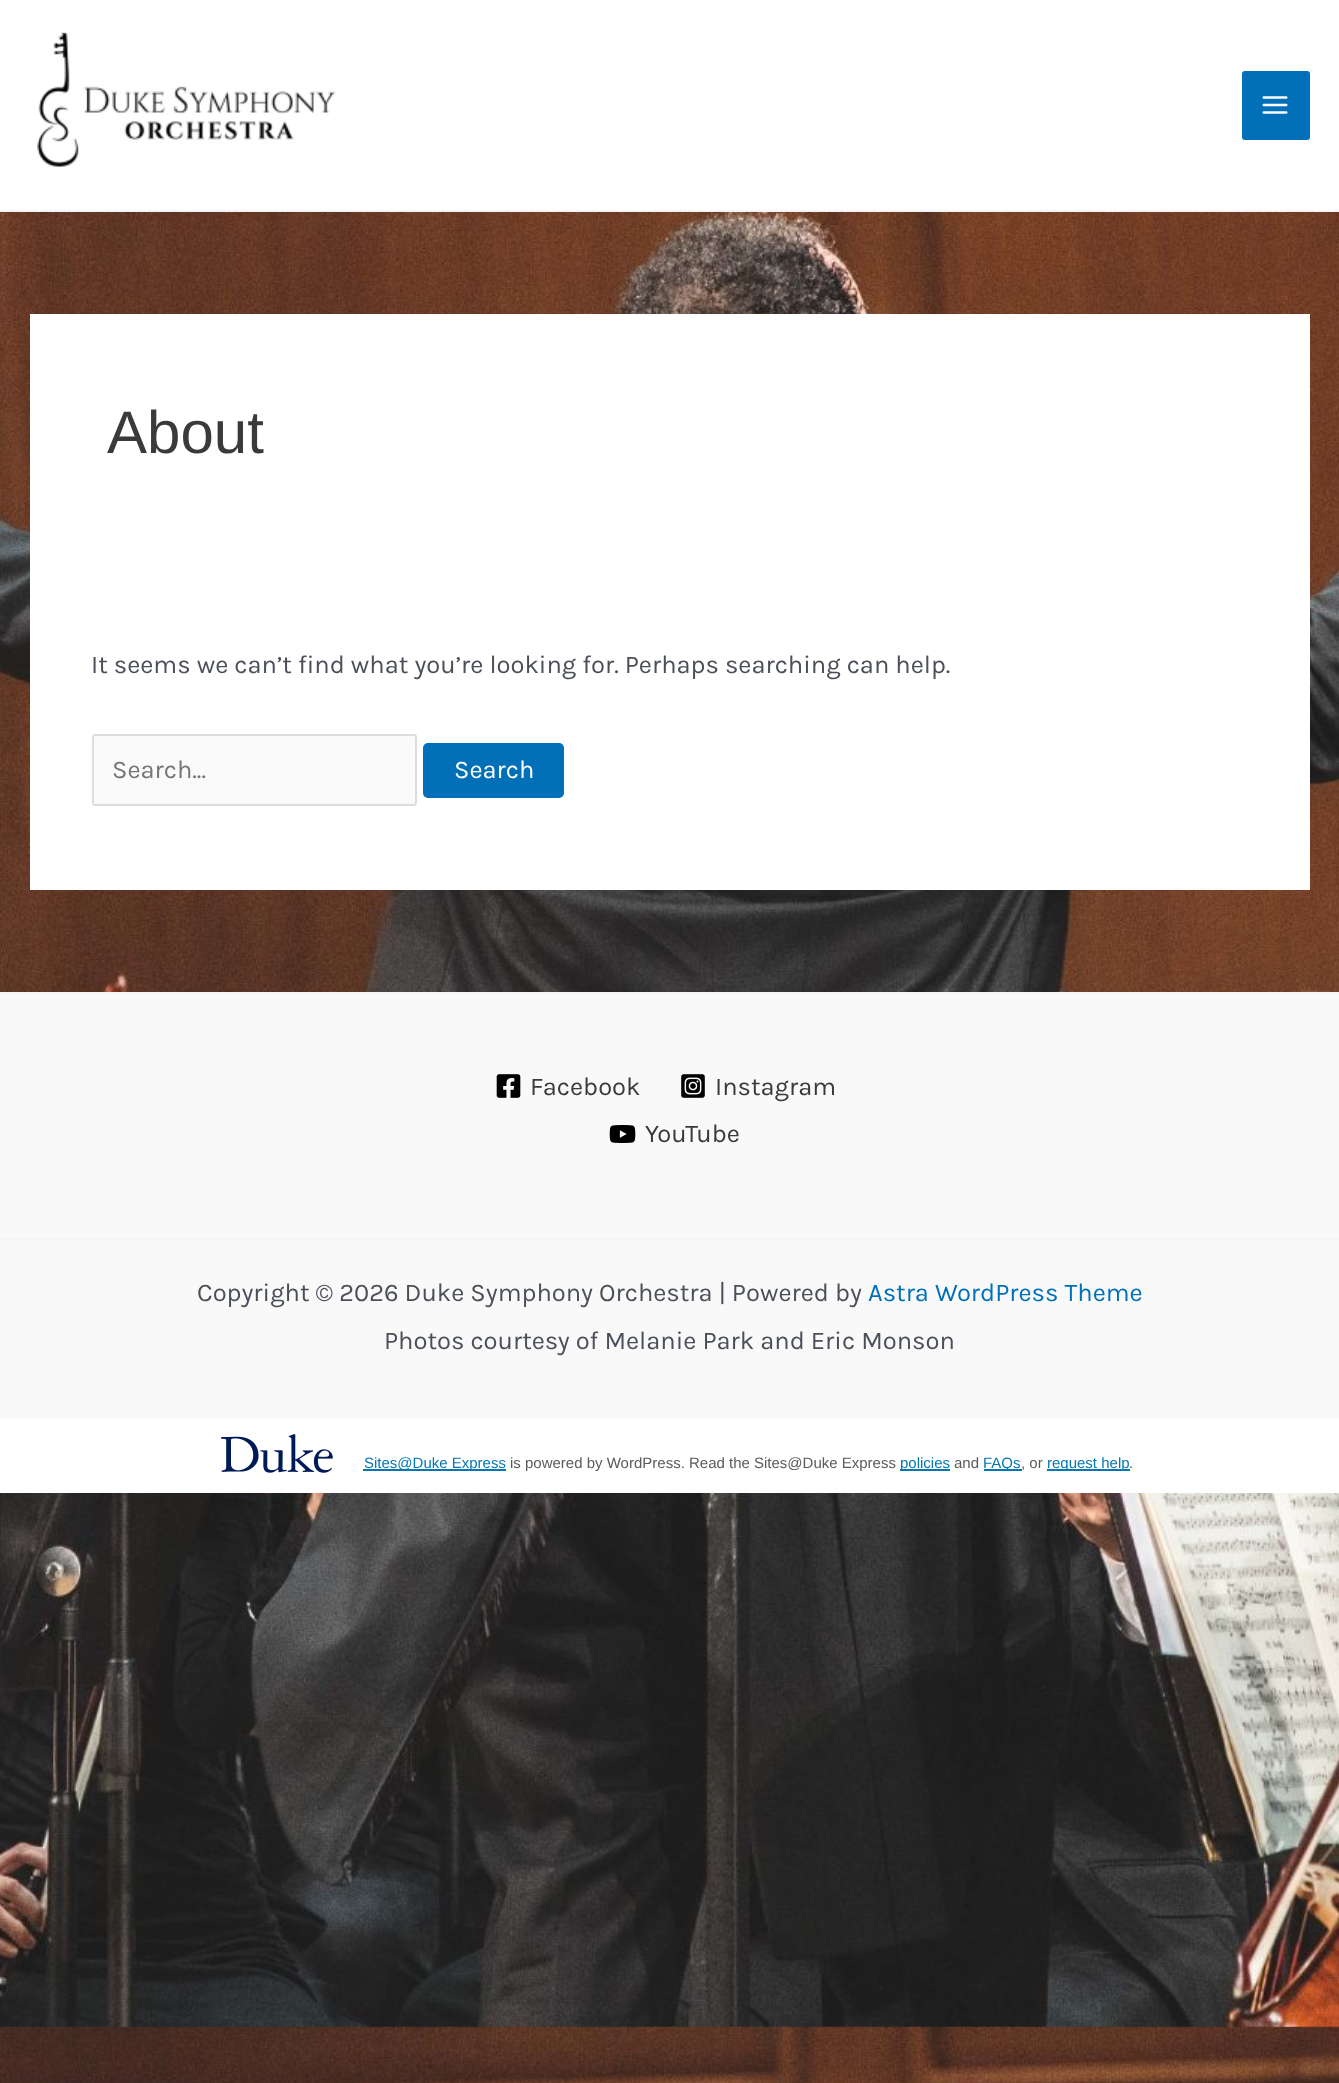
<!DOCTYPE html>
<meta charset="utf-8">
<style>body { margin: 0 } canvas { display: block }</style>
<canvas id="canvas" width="1339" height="2083"></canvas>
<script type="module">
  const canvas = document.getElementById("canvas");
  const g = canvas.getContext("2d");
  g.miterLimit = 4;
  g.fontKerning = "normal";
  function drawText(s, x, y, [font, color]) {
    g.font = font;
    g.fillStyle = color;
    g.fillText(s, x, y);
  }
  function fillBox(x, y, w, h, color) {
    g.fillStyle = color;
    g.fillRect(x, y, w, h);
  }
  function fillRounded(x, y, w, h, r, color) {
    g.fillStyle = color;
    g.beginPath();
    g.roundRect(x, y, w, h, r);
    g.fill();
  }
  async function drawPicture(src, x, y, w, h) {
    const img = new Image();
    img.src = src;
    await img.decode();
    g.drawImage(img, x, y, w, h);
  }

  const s1 = ["60px Liberation Sans", "#3A3A3A"];
  const s2 = ["25.5px Karla", "#4B4F58"];
  const s3 = ["25.5px Karla", "#757575"];
  const s4 = ["25.5px Karla", "#FFFFFF"];
  const s5 = ["25.5px Karla", "#3A3A3A"];
  const s6 = ["25.5px Karla", "#0170B9"];
  const s7 = ["15px Liberation Sans", "#0577B1"];
  const s8 = ["15px Liberation Sans", "#5B5B5B"];

  fillBox(0, 0, 1339, 2083, "#FFFFFF");
  await drawPicture("pic1.png", 0, 212, 1339, 1871);
  fillBox(0, 210, 1339, 2, "#F2F5F7");
  await drawPicture("pic2.png", 37, 31, 299, 137);
  fillRounded(1242, 71, 68, 69, 3, "#0170B9");
  await drawPicture("pic3.png", 1262, 96, 26, 18);
  fillBox(30, 314, 1280, 576, "#FFFFFF");
  drawText("About", 107, 453, s1);
  drawText("It seems we can’t find what you’re looking for. Perhaps searching can help.", 91, 673, s2);
  g.fillStyle = "#FAFAFA";
  g.beginPath();
  g.roundRect(93, 735, 323, 70, 2);
  g.fill();
  g.strokeStyle = "#DDDDDD";
  g.lineWidth = 2;
  g.stroke();
  drawText("Search...", 112, 778, s3);
  fillRounded(423, 743, 141, 55, 5, "#0170B9");
  drawText("Search", 454, 778, s4);
  fillBox(0, 994, 1339, 244, "#F9F9F9");
  fillBox(0, 992, 1339, 2, "#F2F5F7");
  await drawPicture("pic4.png", 496, 1074, 25, 24);
  drawText("Facebook", 530, 1095, s5);
  await drawPicture("pic5.png", 681, 1074, 24, 24);
  drawText("Instagram", 715, 1095, s5);
  await drawPicture("pic6.png", 609, 1125, 27, 18);
  drawText("YouTube", 645, 1142, s5);
  fillBox(0, 1240, 1339, 179, "#F9F9F9");
  fillBox(0, 1238, 1339, 2, "#F2F5F7");
  drawText("Copyright © 2026 Duke Symphony Orchestra | Powered by", 197, 1301, s2);
  drawText("Astra WordPress Theme", 868, 1301, s6);
  drawText("Photos courtesy of Melanie Park and Eric Monson", 384, 1349, s2);
  fillBox(0, 1419, 1339, 74, "#FFFFFF");
  await drawPicture("pic7.png", 221, 1434, 112, 39);
  fillBox(363, 1469, 143, 2, "#0577B1");
  drawText("Sites@Duke Express", 364, 1468, s7);
  drawText("is powered by WordPress. Read the Sites@Duke Express", 510, 1468, s8);
  fillBox(900, 1469, 50, 2, "#0577B1");
  drawText("policies", 900, 1468, s7);
  drawText("and", 954, 1468, s8);
  fillBox(984, 1469, 38, 2, "#0577B1");
  drawText("FAQs", 983, 1468, s7);
  drawText(", or", 1021, 1468, s8);
  fillBox(1047, 1469, 83, 2, "#0577B1");
  drawText("request help", 1047, 1468, s7);
  drawText(".", 1129, 1468, s8);
</script>
